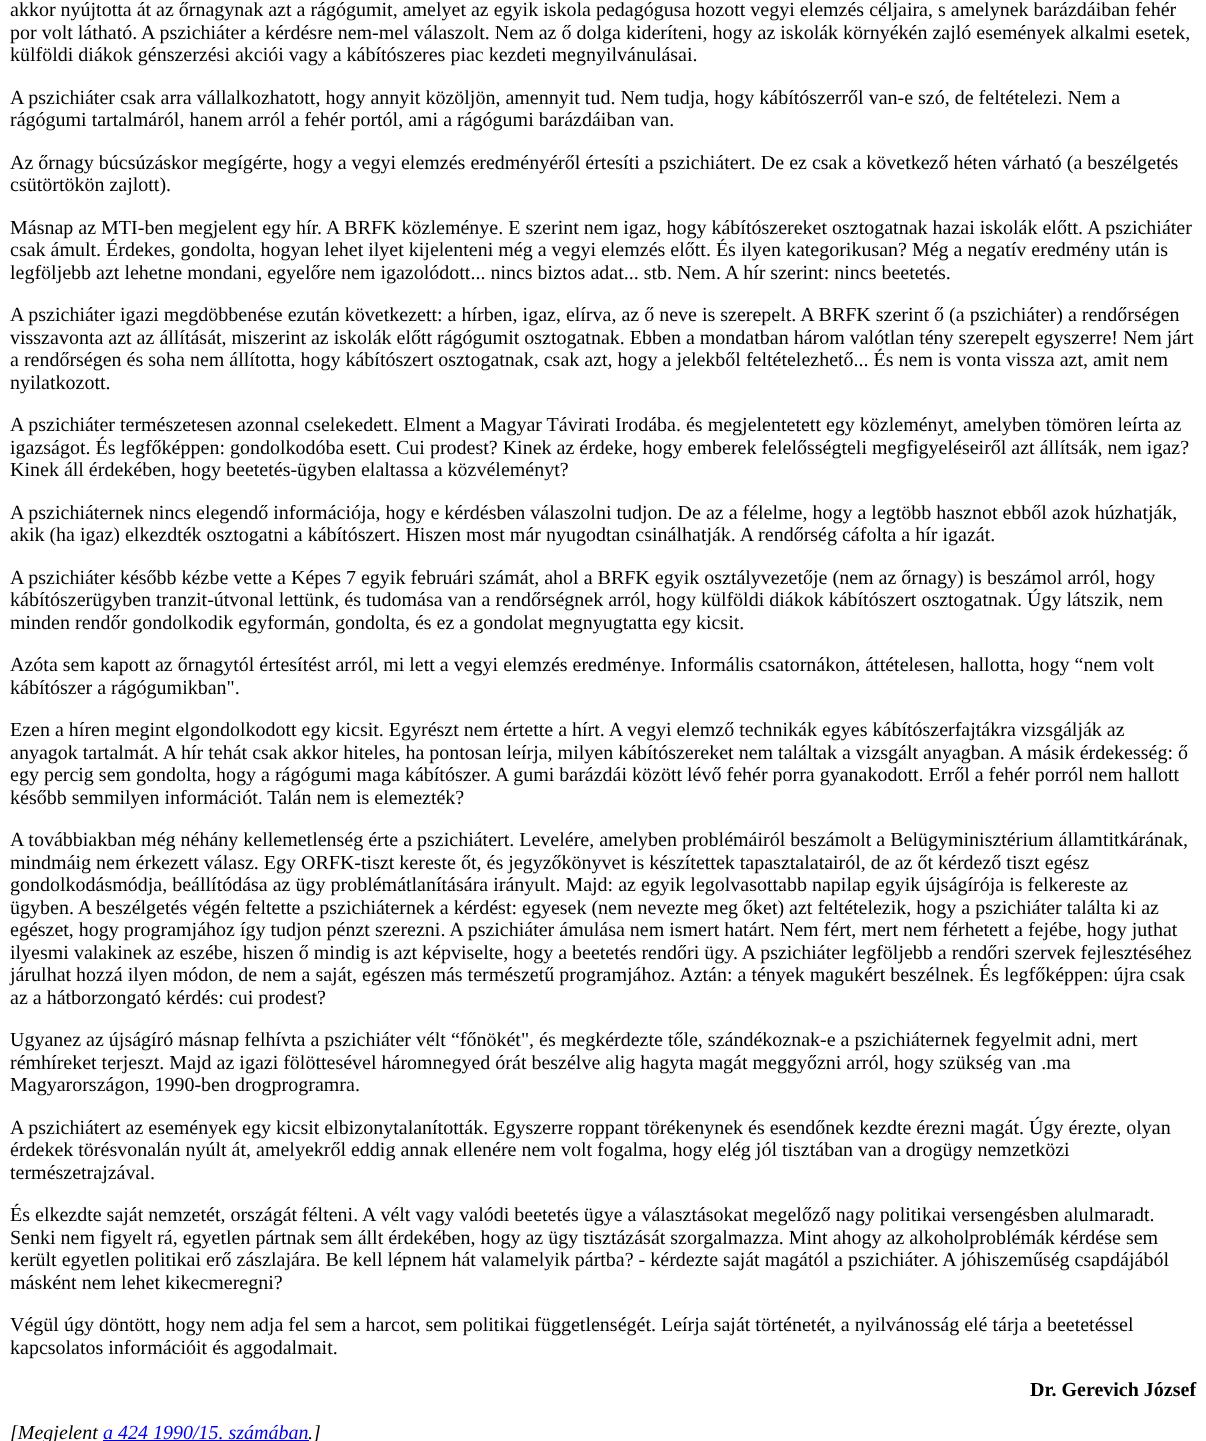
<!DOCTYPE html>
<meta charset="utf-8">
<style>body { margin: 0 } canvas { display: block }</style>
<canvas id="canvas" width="1206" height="1441"></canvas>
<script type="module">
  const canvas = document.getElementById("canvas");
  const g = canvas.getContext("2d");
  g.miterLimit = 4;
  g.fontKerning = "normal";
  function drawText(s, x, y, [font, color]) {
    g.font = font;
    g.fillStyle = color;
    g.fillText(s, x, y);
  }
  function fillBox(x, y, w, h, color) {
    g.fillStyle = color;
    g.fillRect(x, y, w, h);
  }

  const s1 = ["20px Liberation Serif", "#000000"];
  const s2 = ["bold 20px Liberation Serif", "#000000"];
  const s3 = ["italic 20px Liberation Serif", "#000000"];
  const s4 = ["italic 20px Liberation Serif", "#0000EE"];

  fillBox(0, 0, 1206, 1441, "#FFFFFF");
  drawText("akkor nyújtotta át az őrnagynak azt a rágógumit, amelyet az egyik iskola pedagógusa hozott vegyi elemzés céljaira, s amelynek barázdáiban fehér", 10, 16, s1);
  drawText("por volt látható. A pszichiáter a kérdésre nem-mel válaszolt. Nem az ő dolga kideríteni, hogy az iskolák környékén zajló események alkalmi esetek,", 10, 39, s1);
  drawText("külföldi diákok génszerzési akciói vagy a kábítószeres piac kezdeti megnyilvánulásai.", 10, 61, s1);
  drawText("A pszichiáter csak arra vállalkozhatott, hogy annyit közöljön, amennyit tud. Nem tudja, hogy kábítószerről van-e szó, de feltételezi. Nem a", 10, 104, s1);
  drawText("rágógumi tartalmáról, hanem arról a fehér portól, ami a rágógumi barázdáiban van.", 10, 126, s1);
  drawText("Az őrnagy búcsúzáskor megígérte, hogy a vegyi elemzés eredményéről értesíti a pszichiátert. De ez csak a következő héten várható (a beszélgetés", 10, 169, s1);
  drawText("csütörtökön zajlott).", 10, 191, s1);
  drawText("Másnap az MTI-ben megjelent egy hír. A BRFK közleménye. E szerint nem igaz, hogy kábítószereket osztogatnak hazai iskolák előtt. A pszichiáter", 10, 234, s1);
  drawText("csak ámult. Érdekes, gondolta, hogyan lehet ilyet kijelenteni még a vegyi elemzés előtt. És ilyen kategorikusan? Még a negatív eredmény után is", 10, 256, s1);
  drawText("legföljebb azt lehetne mondani, egyelőre nem igazolódott... nincs biztos adat... stb. Nem. A hír szerint: nincs beetetés.", 10, 279, s1);
  drawText("A pszichiáter igazi megdöbbenése ezután következett: a hírben, igaz, elírva, az ő neve is szerepelt. A BRFK szerint ő (a pszichiáter) a rendőrségen", 10, 321, s1);
  drawText("visszavonta azt az állítását, miszerint az iskolák előtt rágógumit osztogatnak. Ebben a mondatban három valótlan tény szerepelt egyszerre! Nem járt", 10, 344, s1);
  drawText("a rendőrségen és soha nem állította, hogy kábítószert osztogatnak, csak azt, hogy a jelekből feltételezhető... És nem is vonta vissza azt, amit nem", 10, 366, s1);
  drawText("nyilatkozott.", 10, 389, s1);
  drawText("A pszichiáter természetesen azonnal cselekedett. Elment a Magyar Távirati Irodába. és megjelentetett egy közleményt, amelyben tömören leírta az", 10, 431, s1);
  drawText("igazságot. És legfőképpen: gondolkodóba esett. Cui prodest? Kinek az érdeke, hogy emberek felelősségteli megfigyeléseiről azt állítsák, nem igaz?", 10, 454, s1);
  drawText("Kinek áll érdekében, hogy beetetés-ügyben elaltassa a közvéleményt?", 10, 476, s1);
  drawText("A pszichiáternek nincs elegendő információja, hogy e kérdésben válaszolni tudjon. De az a félelme, hogy a legtöbb hasznot ebből azok húzhatják,", 10, 519, s1);
  drawText("akik (ha igaz) elkezdték osztogatni a kábítószert. Hiszen most már nyugodtan csinálhatják. A rendőrség cáfolta a hír igazát.", 10, 541, s1);
  drawText("A pszichiáter később kézbe vette a Képes 7 egyik februári számát, ahol a BRFK egyik osztályvezetője (nem az őrnagy) is beszámol arról, hogy", 10, 584, s1);
  drawText("kábítószerügyben tranzit-útvonal lettünk, és tudomása van a rendőrségnek arról, hogy külföldi diákok kábítószert osztogatnak. Úgy látszik, nem", 10, 606, s1);
  drawText("minden rendőr gondolkodik egyformán, gondolta, és ez a gondolat megnyugtatta egy kicsit.", 10, 629, s1);
  drawText("Azóta sem kapott az őrnagytól értesítést arról, mi lett a vegyi elemzés eredménye. Informális csatornákon, áttételesen, hallotta, hogy “nem volt", 10, 671, s1);
  drawText("kábítószer a rágógumikban\".", 10, 694, s1);
  drawText("Ezen a híren megint elgondolkodott egy kicsit. Egyrészt nem értette a hírt. A vegyi elemző technikák egyes kábítószerfajtákra vizsgálják az", 10, 736, s1);
  drawText("anyagok tartalmát. A hír tehát csak akkor hiteles, ha pontosan leírja, milyen kábítószereket nem találtak a vizsgált anyagban. A másik érdekesség: ő", 10, 759, s1);
  drawText("egy percig sem gondolta, hogy a rágógumi maga kábítószer. A gumi barázdái között lévő fehér porra gyanakodott. Erről a fehér porról nem hallott", 10, 781, s1);
  drawText("később semmilyen információt. Talán nem is elemezték?", 10, 804, s1);
  drawText("A továbbiakban még néhány kellemetlenség érte a pszichiátert. Levelére, amelyben problémáiról beszámolt a Belügyminisztérium államtitkárának,", 10, 846, s1);
  drawText("mindmáig nem érkezett válasz. Egy ORFK-tiszt kereste őt, és jegyzőkönyvet is készítettek tapasztalatairól, de az őt kérdező tiszt egész", 10, 869, s1);
  drawText("gondolkodásmódja, beállítódása az ügy problémátlanítására irányult. Majd: az egyik legolvasottabb napilap egyik újságírója is felkereste az", 10, 891, s1);
  drawText("ügyben. A beszélgetés végén feltette a pszichiáternek a kérdést: egyesek (nem nevezte meg őket) azt feltételezik, hogy a pszichiáter találta ki az", 10, 914, s1);
  drawText("egészet, hogy programjához így tudjon pénzt szerezni. A pszichiáter ámulása nem ismert határt. Nem fért, mert nem férhetett a fejébe, hogy juthat", 10, 936, s1);
  drawText("ilyesmi valakinek az eszébe, hiszen ő mindig is azt képviselte, hogy a beetetés rendőri ügy. A pszichiáter legföljebb a rendőri szervek fejlesztéséhez", 10, 959, s1);
  drawText("járulhat hozzá ilyen módon, de nem a saját, egészen más természetű programjához. Aztán: a tények magukért beszélnek. És legfőképpen: újra csak", 10, 981, s1);
  drawText("az a hátborzongató kérdés: cui prodest?", 10, 1004, s1);
  drawText("Ugyanez az újságíró másnap felhívta a pszichiáter vélt “főnökét\", és megkérdezte tőle, szándékoznak-e a pszichiáternek fegyelmit adni, mert", 10, 1046, s1);
  drawText("rémhíreket terjeszt. Majd az igazi fölöttesével háromnegyed órát beszélve alig hagyta magát meggyőzni arról, hogy szükség van .ma", 10, 1069, s1);
  drawText("Magyarországon, 1990-ben drogprogramra.", 10, 1091, s1);
  drawText("A pszichiátert az események egy kicsit elbizonytalanították. Egyszerre roppant törékenynek és esendőnek kezdte érezni magát. Úgy érezte, olyan", 10, 1134, s1);
  drawText("érdekek törésvonalán nyúlt át, amelyekről eddig annak ellenére nem volt fogalma, hogy elég jól tisztában van a drogügy nemzetközi", 10, 1156, s1);
  drawText("természetrajzával.", 10, 1179, s1);
  drawText("És elkezdte saját nemzetét, országát félteni. A vélt vagy valódi beetetés ügye a választásokat megelőző nagy politikai versengésben alulmaradt.", 10, 1221, s1);
  drawText("Senki nem figyelt rá, egyetlen pártnak sem állt érdekében, hogy az ügy tisztázását szorgalmazza. Mint ahogy az alkoholproblémák kérdése sem", 10, 1244, s1);
  drawText("került egyetlen politikai erő zászlajára. Be kell lépnem hát valamelyik pártba? - kérdezte saját magától a pszichiáter. A jóhiszeműség csapdájából", 10, 1266, s1);
  drawText("másként nem lehet kikecmeregni?", 10, 1289, s1);
  drawText("Végül úgy döntött, hogy nem adja fel sem a harcot, sem politikai függetlenségét. Leírja saját történetét, a nyilvánosság elé tárja a beetetéssel", 10, 1331, s1);
  drawText("kapcsolatos információit és aggodalmait.", 10, 1354, s1);
  drawText("Dr. Gerevich József", 1030, 1396, s2);
  drawText("[Megjelent", 10, 1439, s3);
  drawText("a 424 1990/15. számában", 103, 1439, s4);
  drawText(".]", 308, 1439, s3);
  fillBox(103, 1440, 206, 1, "#0000EE");
</script>
